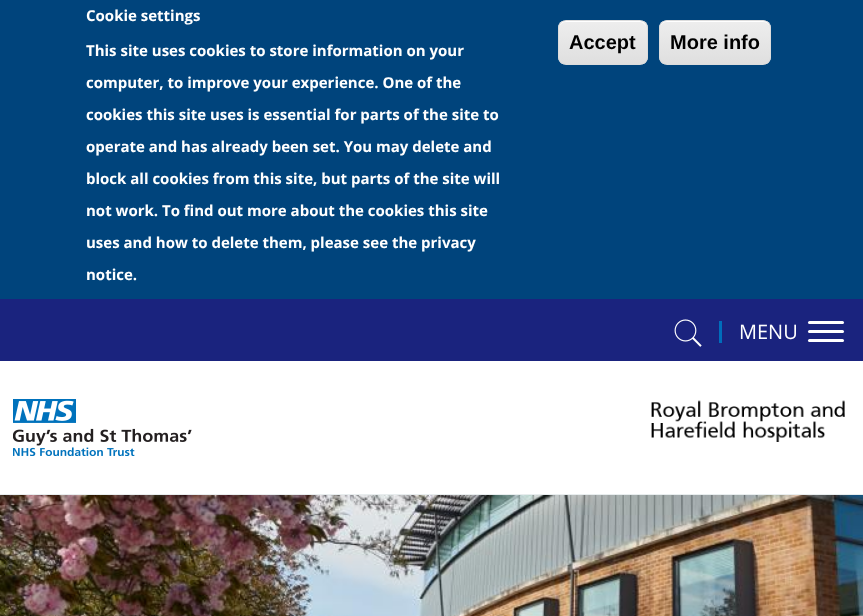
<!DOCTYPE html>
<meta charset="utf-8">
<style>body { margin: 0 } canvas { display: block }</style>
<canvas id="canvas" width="863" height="616"></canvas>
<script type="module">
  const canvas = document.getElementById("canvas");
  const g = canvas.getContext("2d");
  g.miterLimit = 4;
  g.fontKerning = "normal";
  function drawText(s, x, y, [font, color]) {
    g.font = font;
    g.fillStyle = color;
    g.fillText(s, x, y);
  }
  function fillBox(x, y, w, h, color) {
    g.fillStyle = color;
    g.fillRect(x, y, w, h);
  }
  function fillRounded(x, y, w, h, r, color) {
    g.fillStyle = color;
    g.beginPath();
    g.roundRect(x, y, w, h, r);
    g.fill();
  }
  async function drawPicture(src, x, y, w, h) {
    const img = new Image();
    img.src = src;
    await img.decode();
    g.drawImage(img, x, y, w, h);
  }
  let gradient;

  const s1 = ["bold 15px Open Sans", "#FFFFFF"];
  const s2 = ["bold 20px Liberation Sans", "#000000"];
  const s3 = ["20px Open Sans", "#FFFFFF"];

  fillBox(0, 0, 863, 616, "#FFFFFF");
  fillBox(0, 0, 863, 299, "#00447C");
  drawText("Cookie settings", 86, 21, s1);
  drawText("This site uses cookies to store information on your", 86, 56, s1);
  drawText("computer, to improve your experience. One of the", 86, 88, s1);
  drawText("cookies this site uses is essential for parts of the site to", 86, 120, s1);
  drawText("operate and has already been set. You may delete and", 86, 152, s1);
  drawText("block all cookies from this site, but parts of the site will", 86, 184, s1);
  drawText("not work. To find out more about the cookies this site", 86, 216, s1);
  drawText("uses and how to delete them, please see the privacy", 86, 248, s1);
  drawText("notice.", 86, 280, s1);
  g.save();
  g.beginPath();
  g.roundRect(558, 20, 90, 45, 8);
  g.clip();
  gradient = g.createLinearGradient(603, 21, 603, 64);
  gradient.addColorStop(0.05, "#EDEDED");
  gradient.addColorStop(1, "#DFDFDF");
  g.fillStyle = gradient;
  g.fillRect(558, 21, 90, 43);
  g.restore();
  g.beginPath();
  g.moveTo(565, 22);
  g.lineTo(640, 22);
  g.bezierCurveTo(643, 22, 646, 25, 646, 29);
  g.bezierCurveTo(646, 18, 636, 21, 628, 21);
  g.lineTo(578, 21);
  g.bezierCurveTo(569, 21, 559, 18, 559, 29);
  g.bezierCurveTo(559, 25, 562, 22, 565, 22);
  g.closePath();
  g.fill();
  g.beginPath();
  g.roundRect(558.5, 20.5, 89, 44, 7.5);
  g.strokeStyle = "#DCDCDC";
  g.stroke();
  drawText("Accept", 569, 49, s2);
  g.save();
  g.beginPath();
  g.roundRect(659, 20, 112, 45, 8);
  g.clip();
  gradient = g.createLinearGradient(715, 21, 715, 64);
  gradient.addColorStop(0.05, "#EDEDED");
  gradient.addColorStop(1, "#DFDFDF");
  g.fillStyle = gradient;
  g.fillRect(659, 21, 112, 43);
  g.restore();
  g.fillStyle = "#FFFFFF";
  g.beginPath();
  g.moveTo(666, 22);
  g.lineTo(764, 22);
  g.bezierCurveTo(767, 22, 770, 25, 770, 29);
  g.bezierCurveTo(770, 17, 757, 21, 748, 21);
  g.lineTo(682, 21);
  g.bezierCurveTo(673, 21, 660, 17, 660, 29);
  g.bezierCurveTo(660, 25, 663, 22, 666, 22);
  g.closePath();
  g.fill();
  g.beginPath();
  g.roundRect(659.5, 20.5, 111, 44, 7.5);
  g.stroke();
  drawText("More info", 670, 49, s2);
  fillBox(0, 494, 863, 1, "#E8EDEE");
  fillBox(0, 299, 863, 62, "#1A237E");
  await drawPicture("pic1.png", 674, 319, 28, 28);
  fillBox(719, 321, 3, 22, "#006DBB");
  drawText("MENU", 739, 339, s3);
  fillRounded(808, 321, 36, 3, 1.5, "#FFFFFF");
  fillRounded(808, 330, 36, 3, 1.5, "#FFFFFF");
  fillRounded(808, 339, 36, 3, 1.5, "#FFFFFF");
  await drawPicture("pic2.png", 13, 399, 179, 57);
  await drawPicture("pic3.png", 651, 400, 194, 42);
  await drawPicture("pic4.png", 0, 495, 863, 121);
</script>
